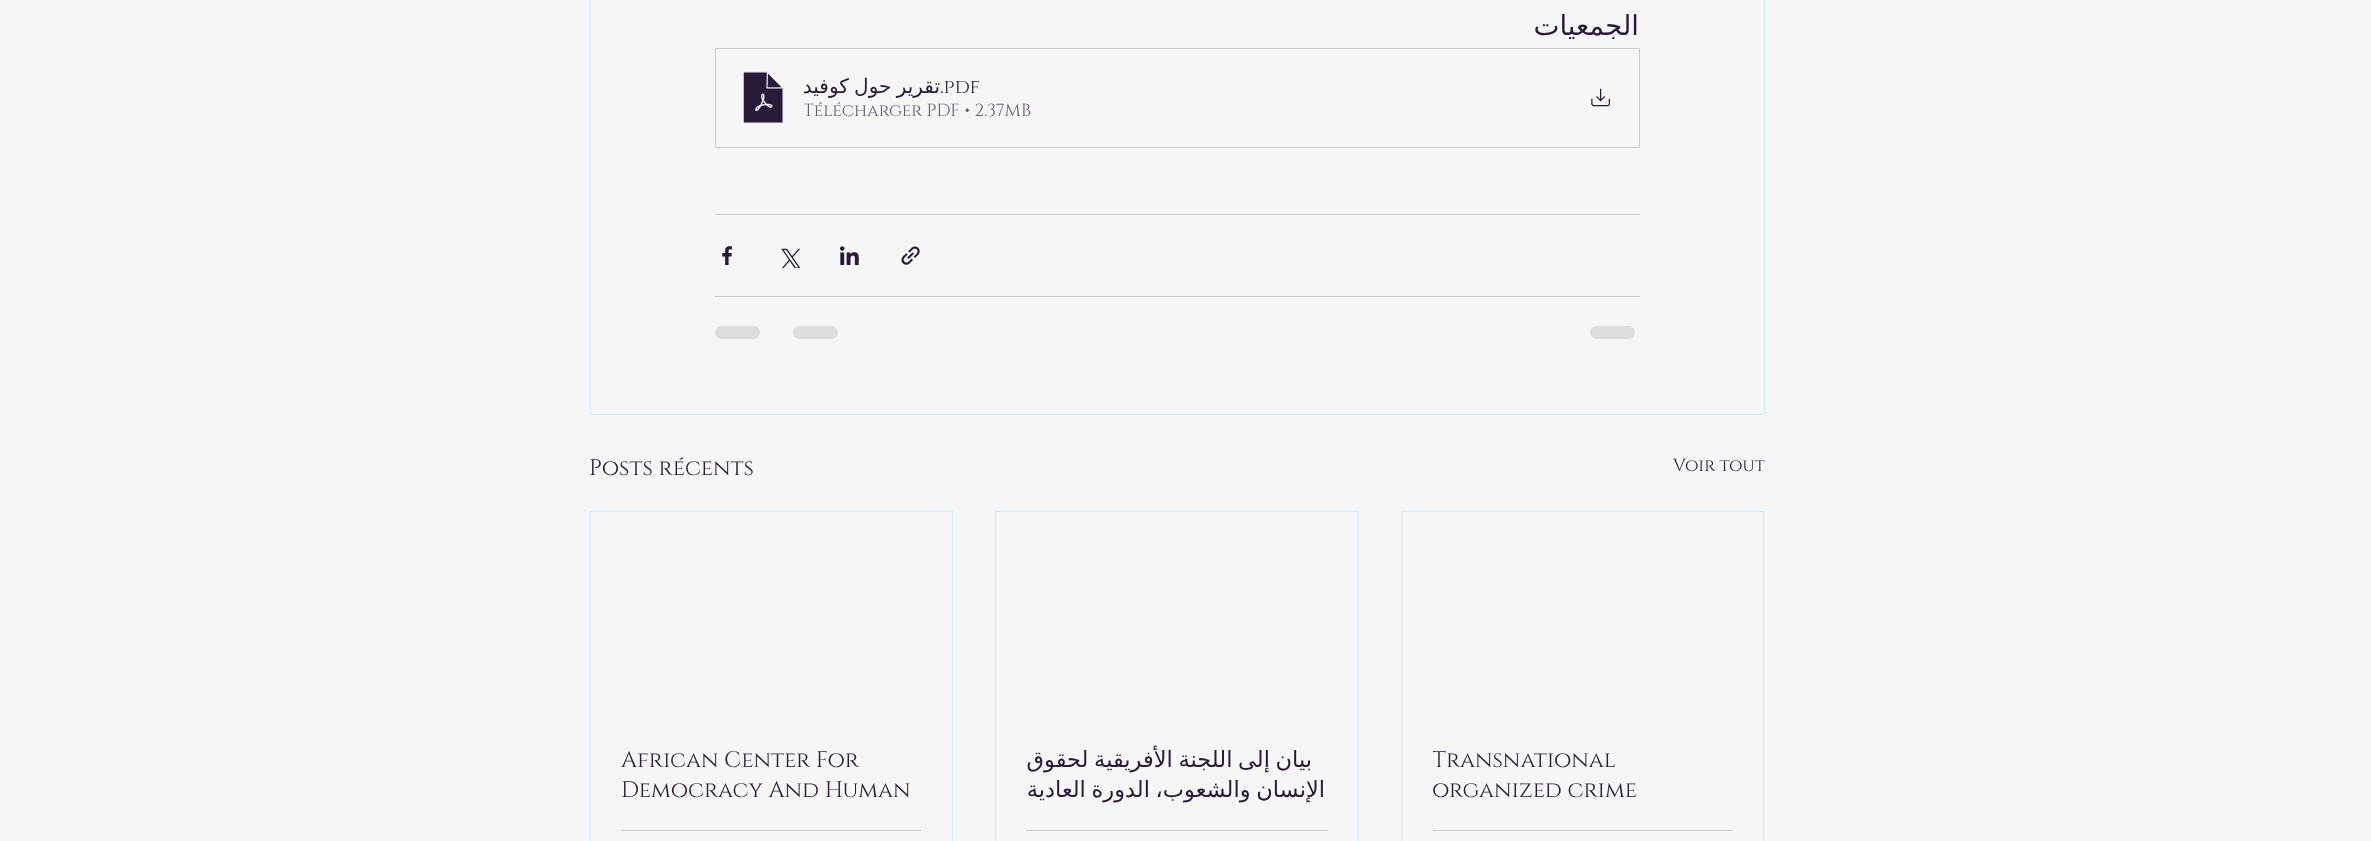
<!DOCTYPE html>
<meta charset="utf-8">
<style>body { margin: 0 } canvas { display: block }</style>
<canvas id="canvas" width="2371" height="841"></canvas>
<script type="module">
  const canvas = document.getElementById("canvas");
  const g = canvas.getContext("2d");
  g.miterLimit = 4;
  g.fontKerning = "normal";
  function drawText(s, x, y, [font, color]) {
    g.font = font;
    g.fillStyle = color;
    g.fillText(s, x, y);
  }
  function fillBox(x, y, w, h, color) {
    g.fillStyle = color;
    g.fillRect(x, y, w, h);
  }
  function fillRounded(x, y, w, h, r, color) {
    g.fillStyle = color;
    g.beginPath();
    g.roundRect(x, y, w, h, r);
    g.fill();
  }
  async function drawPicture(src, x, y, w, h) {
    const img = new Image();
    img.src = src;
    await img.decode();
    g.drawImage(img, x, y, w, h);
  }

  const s1 = ["27.5px DejaVu Sans", "#281A39"];
  const s2 = ["20px DejaVu Sans", "#281A39"];
  const s3 = ["20px Cinzel", "#281A39"];
  const s4 = ["17.5px Cinzel", "#665C72"];
  const s5 = ["22.5px Cinzel", "#281A39"];
  const s6 = ["17.5px Cinzel", "#281A39"];
  const s7 = ["22.5px DejaVu Sans", "#281A39"];

  fillBox(0, 0, 2371, 841, "#F6F6F6");
  g.strokeStyle = "#CBECFA";
  g.strokeRect(590.5, -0.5, 1174, 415);
  g.direction = "rtl";
  drawText("الجمعيات", 1639, 35, s1);
  g.strokeStyle = "#CDCAD0";
  g.strokeRect(715.5, 48.5, 924, 99);
  await drawPicture("pic1.png", 743, 71, 41, 53);
  g.save();
  g.beginPath();
  g.rect(804, 73, 136, 27);
  g.clip();
  g.wordSpacing = "-1px";
  drawText("تقرير حول كوفيد", 940, 93, s2);
  g.restore();
  g.direction = "ltr";
  drawText(".pdf", 940, 93, s3);
  g.save();
  g.beginPath();
  g.rect(804, 100, 767, 23);
  g.clip();
  drawText("Télécharger PDF • 2.37MB", 803, 116, s4);
  g.restore();
  await drawPicture("pic2.png", 1591, 88, 19, 19);
  fillBox(715, 214, 925, 1, "#CDCAD0");
  await drawPicture("pic3.png", 722, 246, 10, 19);
  await drawPicture("pic4.png", 781, 248, 19, 20);
  await drawPicture("pic5.png", 840, 246, 19, 19);
  await drawPicture("pic6.png", 901, 246, 19, 19);
  fillBox(715, 296, 925, 1, "#CDCAD0");
  fillRounded(715, 326, 45, 13, 6.5, "#DDDCDF");
  fillRounded(793, 326, 45, 13, 6.5, "#DDDCDF");
  fillRounded(1590, 326, 45, 13, 6.5, "#DDDCDF");
  drawText("Posts récents", 589, 475, s5);
  drawText("Voir tout", 1673, 471, s6);
  g.strokeStyle = "#CBECFA";
  g.strokeRect(590.5, 511.5, 362, 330);
  drawText("African Center For", 621, 767, s5);
  drawText("Democracy And Human", 621, 797, s5);
  fillBox(621, 830, 300, 1, "#CDCAD0");
  g.strokeRect(995.5, 511.5, 363, 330);
  g.wordSpacing = "-1.5px";
  g.direction = "rtl";
  drawText("بيان إلى اللجنة الأفريقية لحقوق", 1312, 767, s7);
  drawText("الإنسان والشعوب، الدورة العادية", 1325, 797, s7);
  fillBox(1026, 830, 302, 1, "#CDCAD0");
  g.strokeRect(1401.5, 511.5, 362, 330);
  g.save();
  g.beginPath();
  g.rect(1433, 745, 300, 60);
  g.clip();
  g.wordSpacing = "0px";
  g.direction = "ltr";
  drawText("Transnational", 1432, 767, s5);
  g.restore();
  g.wordSpacing = "0px";
  g.direction = "ltr";
  drawText("organized crime", 1432, 797, s5);
  fillBox(1433, 830, 300, 1, "#CDCAD0");
</script>
